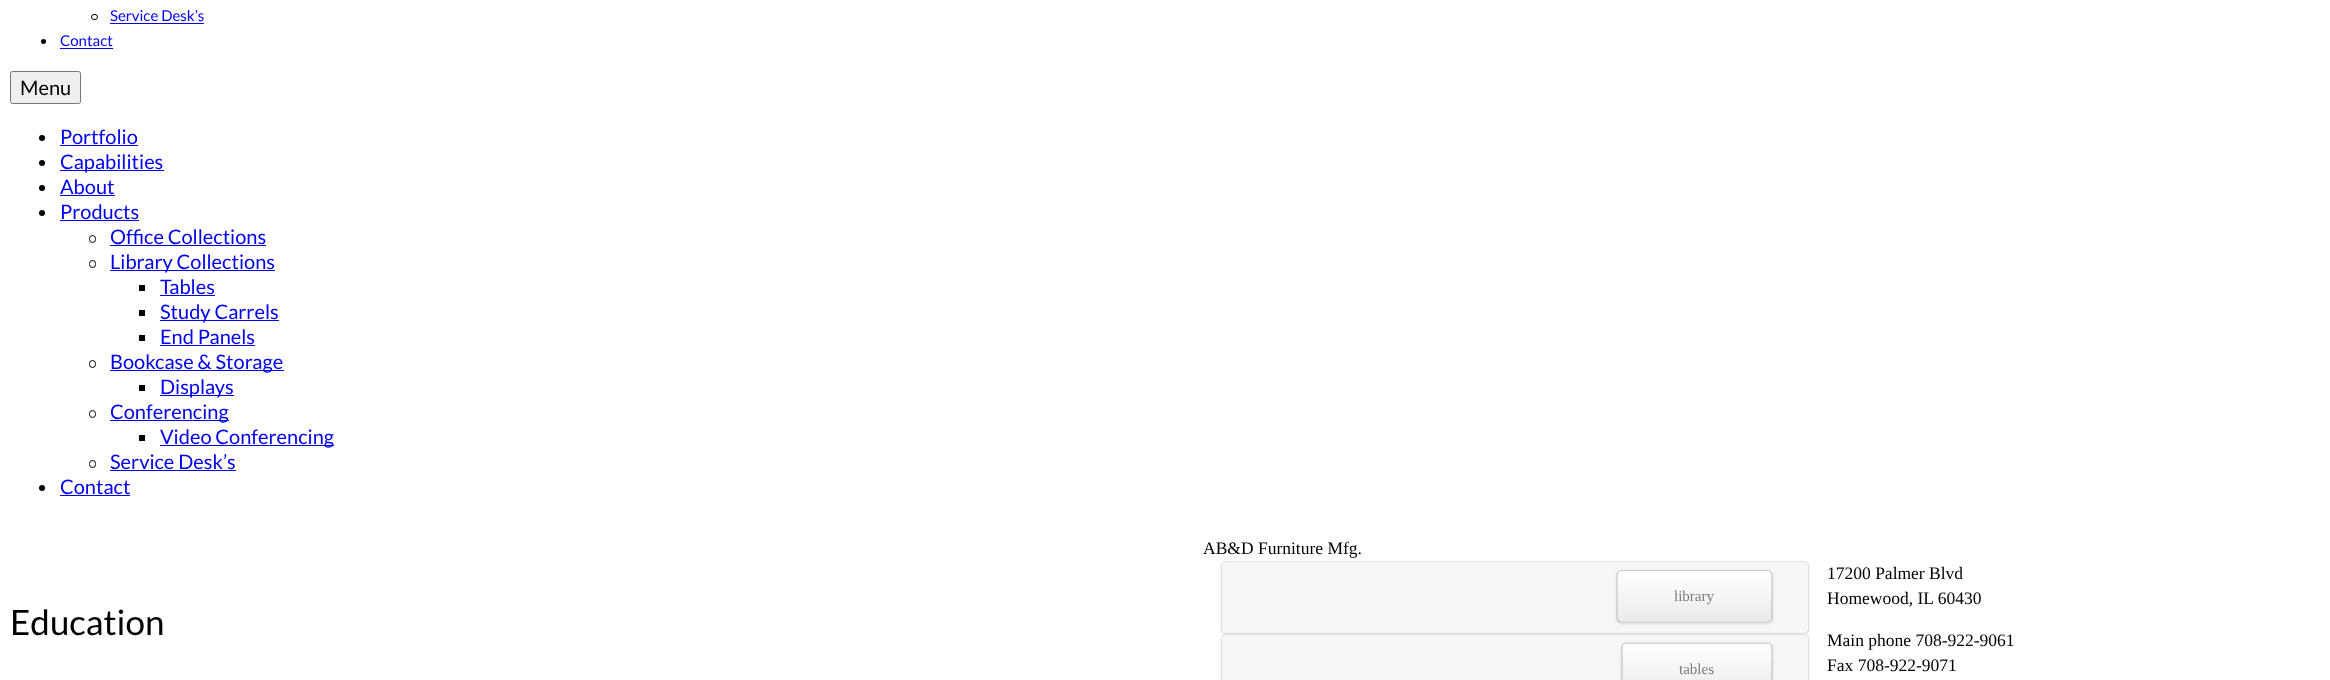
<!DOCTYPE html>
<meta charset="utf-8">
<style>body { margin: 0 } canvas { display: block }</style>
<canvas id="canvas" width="2330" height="680"></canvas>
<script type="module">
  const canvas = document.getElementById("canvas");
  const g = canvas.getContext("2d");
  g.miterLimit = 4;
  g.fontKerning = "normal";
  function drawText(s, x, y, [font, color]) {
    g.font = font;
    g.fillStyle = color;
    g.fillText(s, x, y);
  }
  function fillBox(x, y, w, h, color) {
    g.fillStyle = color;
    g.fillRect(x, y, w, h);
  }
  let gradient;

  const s1 = ["15px Lato", "#0000EE"];
  const s2 = ["20px Lato", "#000000"];
  const s3 = ["20px Lato", "#0000EE"];
  const s4 = ["17.5px Liberation Serif", "#000000"];
  const s5 = ["35px Lato", "#000000"];
  const s6 = ["15px Liberation Serif", "#7B7B7B"];

  fillBox(0, 0, 2330, 680, "#FFFFFF");
  g.beginPath();
  g.roundRect(91.5, 14.5, 6, 5, 2.5);
  g.strokeStyle = "#000000";
  g.stroke();
  drawText("Service Desk’s", 110, 21, s1);
  fillBox(110, 23, 94, 1, "#0000EE");
  g.fillStyle = "#000000";
  g.beginPath();
  g.arc(43.5, 41.5, 2.5, 0, Math.PI * 2);
  g.fill();
  drawText("Contact", 60, 46, s1);
  fillBox(60, 48, 53, 1, "#0000EE");
  g.fillStyle = "#EFEFEF";
  g.beginPath();
  g.roundRect(10.5, 71.5, 70, 32, 2);
  g.fill();
  g.strokeStyle = "#767676";
  g.stroke();
  drawText("Menu", 20, 95, s2);
  g.beginPath();
  g.arc(42, 138, 3, 0, Math.PI * 2);
  g.fill();
  drawText("Portfolio", 60, 144, s3);
  fillBox(60, 145, 78, 1, "#0000EE");
  g.fillStyle = "#000000";
  g.beginPath();
  g.arc(42, 163, 3, 0, Math.PI * 2);
  g.fill();
  fillBox(60, 170, 104, 1, "#0000EE");
  drawText("Capabilities", 60, 169, s3);
  g.fillStyle = "#000000";
  g.beginPath();
  g.arc(42, 188, 3, 0, Math.PI * 2);
  g.fill();
  drawText("About", 60, 194, s3);
  fillBox(60, 195, 55, 1, "#0000EE");
  g.fillStyle = "#000000";
  g.beginPath();
  g.arc(42, 213, 3, 0, Math.PI * 2);
  g.fill();
  drawText("Products", 60, 219, s3);
  fillBox(60, 220, 79, 1, "#0000EE");
  g.beginPath();
  g.roundRect(89.5, 235.5, 6, 7, 3);
  g.strokeStyle = "#000000";
  g.stroke();
  drawText("Office Collections", 110, 244, s3);
  fillBox(110, 245, 156, 1, "#0000EE");
  g.beginPath();
  g.roundRect(89.5, 260.5, 6, 7, 3);
  g.stroke();
  fillBox(110, 270, 165, 1, "#0000EE");
  drawText("Library Collections", 110, 269, s3);
  fillBox(139, 285, 6, 6, "#000000");
  drawText("Tables", 160, 294, s3);
  fillBox(160, 295, 55, 1, "#0000EE");
  fillBox(139, 310, 6, 6, "#000000");
  fillBox(160, 320, 119, 1, "#0000EE");
  drawText("Study Carrels", 160, 319, s3);
  fillBox(139, 335, 6, 6, "#000000");
  drawText("End Panels", 160, 344, s3);
  fillBox(160, 345, 95, 1, "#0000EE");
  g.beginPath();
  g.roundRect(89.5, 360.5, 6, 7, 3);
  g.stroke();
  fillBox(110, 370, 174, 1, "#0000EE");
  drawText("Bookcase & Storage", 110, 369, s3);
  fillBox(139, 385, 6, 6, "#000000");
  fillBox(160, 395, 74, 1, "#0000EE");
  drawText("Displays", 160, 394, s3);
  g.beginPath();
  g.roundRect(89.5, 410.5, 6, 7, 3);
  g.stroke();
  fillBox(110, 420, 119, 1, "#0000EE");
  drawText("Conferencing", 110, 419, s3);
  fillBox(139, 435, 6, 6, "#000000");
  fillBox(160, 445, 174, 1, "#0000EE");
  drawText("Video Conferencing", 160, 444, s3);
  g.beginPath();
  g.roundRect(89.5, 460.5, 6, 7, 3);
  g.stroke();
  drawText("Service Desk’s", 110, 469, s3);
  fillBox(110, 470, 126, 1, "#0000EE");
  g.fillStyle = "#000000";
  g.beginPath();
  g.arc(42, 488, 3, 0, Math.PI * 2);
  g.fill();
  drawText("Contact", 60, 494, s3);
  fillBox(60, 495, 70, 1, "#0000EE");
  drawText("AB&D Furniture Mfg.", 1203, 554, s4);
  drawText("17200 Palmer Blvd", 1827, 579, s4);
  drawText("Homewood, IL 60430", 1827, 604, s4);
  drawText("Main phone 708-922-9061", 1827, 646, s4);
  drawText("Fax 708-922-9071", 1827, 671, s4);
  drawText("Education", 10, 635, s5);
  g.fillStyle = "rgba(0, 0, 0, 0.1)";
  g.filter = "blur(1px)";
  g.beginPath();
  g.roundRect(1221, 563, 588, 72, 5);
  g.fill();
  g.filter = "none";
  g.fillStyle = "#F6F6F6";
  g.beginPath();
  g.roundRect(1221.5, 561.5, 587, 72, 4.5);
  g.fill();
  g.strokeStyle = "#E0E0E0";
  g.stroke();
  g.fillStyle = "rgba(0, 0, 0, 0.1)";
  g.filter = "blur(1px)";
  g.beginPath();
  g.roundRect(1616, 571, 157, 53, 5);
  g.fill();
  g.filter = "none";
  g.save();
  g.beginPath();
  g.roundRect(1616, 570, 157, 53, 5);
  g.clip();
  gradient = g.createLinearGradient(1618, 621, 1618, 571);
  gradient.addColorStop(0, "#EBEBEB");
  gradient.addColorStop(1, "#FFFFFF");
  g.fillStyle = gradient;
  g.fillRect(1616, 571, 157, 50);
  gradient = g.createLinearGradient(1618, 671, 1618, 621);
  gradient.addColorStop(0, "#EBEBEB");
  gradient.addColorStop(1, "#FFFFFF");
  g.fillStyle = gradient;
  g.fillRect(1616, 621, 157, 2);
  g.restore();
  g.beginPath();
  g.moveTo(1618, 572);
  g.bezierCurveTo(1619, 571, 1620, 570.5, 1621, 570.5);
  g.lineTo(1767.5, 570.5);
  g.bezierCurveTo(1768.5, 570.5, 1770, 571, 1770.5, 572);
  g.strokeStyle = "#CDCDCD";
  g.lineWidth = 1.2;
  g.stroke();
  g.beginPath();
  g.moveTo(1770.5, 572);
  g.bezierCurveTo(1771.5, 572.5, 1772, 574, 1772, 575);
  g.lineTo(1772, 617.5);
  g.bezierCurveTo(1772, 618.5, 1771.5, 620, 1770.5, 620.5);
  g.strokeStyle = "#C2C2C2";
  g.stroke();
  g.beginPath();
  g.moveTo(1770.5, 620.5);
  g.bezierCurveTo(1770, 621.5, 1768.5, 622, 1767.5, 622);
  g.lineTo(1621, 622);
  g.bezierCurveTo(1620, 622, 1619, 621.5, 1618, 620.5);
  g.strokeStyle = "#B7B7B7";
  g.stroke();
  g.beginPath();
  g.moveTo(1618, 620.5);
  g.bezierCurveTo(1617.5, 620, 1617, 618.5, 1617, 617.5);
  g.lineTo(1617, 575);
  g.bezierCurveTo(1617, 574, 1617.5, 572.5, 1618, 572);
  g.strokeStyle = "#C2C2C2";
  g.stroke();
  drawText("library", 1674, 601, s6);
  g.fillStyle = "rgba(0, 0, 0, 0.1)";
  g.filter = "blur(1px)";
  g.beginPath();
  g.roundRect(1221, 635, 588, 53, 5);
  g.fill();
  g.filter = "none";
  g.fillStyle = "#F6F6F6";
  g.beginPath();
  g.roundRect(1221.5, 634.5, 587, 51, 4.5);
  g.fill();
  g.strokeStyle = "#E0E0E0";
  g.lineWidth = 1;
  g.stroke();
  g.fillStyle = "rgba(0, 0, 0, 0.1)";
  g.filter = "blur(1px)";
  g.beginPath();
  g.roundRect(1621, 644, 152, 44, 5);
  g.fill();
  g.filter = "none";
  g.save();
  g.beginPath();
  g.roundRect(1621, 643, 152, 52, 5);
  g.clip();
  gradient = g.createLinearGradient(1623, 644, 1623, 594);
  gradient.addColorStop(0, "#EBEBEB");
  gradient.addColorStop(1, "#FFFFFF");
  g.fillStyle = gradient;
  g.fillRect(1621, 643, 152, 1);
  gradient = g.createLinearGradient(1623, 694, 1623, 644);
  gradient.addColorStop(0, "#EBEBEB");
  gradient.addColorStop(1, "#FFFFFF");
  g.fillStyle = gradient;
  g.fillRect(1621, 644, 152, 36);
  g.restore();
  g.beginPath();
  g.moveTo(1623, 644.5);
  g.bezierCurveTo(1624, 643.5, 1625, 643, 1626, 643);
  g.lineTo(1767.5, 643);
  g.bezierCurveTo(1768.5, 643, 1770, 643.5, 1770.5, 644.5);
  g.strokeStyle = "#CDCDCD";
  g.lineWidth = 1.2;
  g.stroke();
  g.beginPath();
  g.moveTo(1770.5, 644.5);
  g.bezierCurveTo(1771.5, 645, 1772, 646.5, 1772, 647.5);
  g.lineTo(1772, 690);
  g.bezierCurveTo(1772, 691, 1771.5, 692.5, 1770.5, 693);
  g.strokeStyle = "#C2C2C2";
  g.stroke();
  g.beginPath();
  g.moveTo(1623, 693);
  g.bezierCurveTo(1622.5, 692.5, 1622, 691, 1622, 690);
  g.lineTo(1622, 647.5);
  g.bezierCurveTo(1622, 646.5, 1622.5, 645, 1623, 644.5);
  g.stroke();
  drawText("tables", 1679, 674, s6);
</script>
